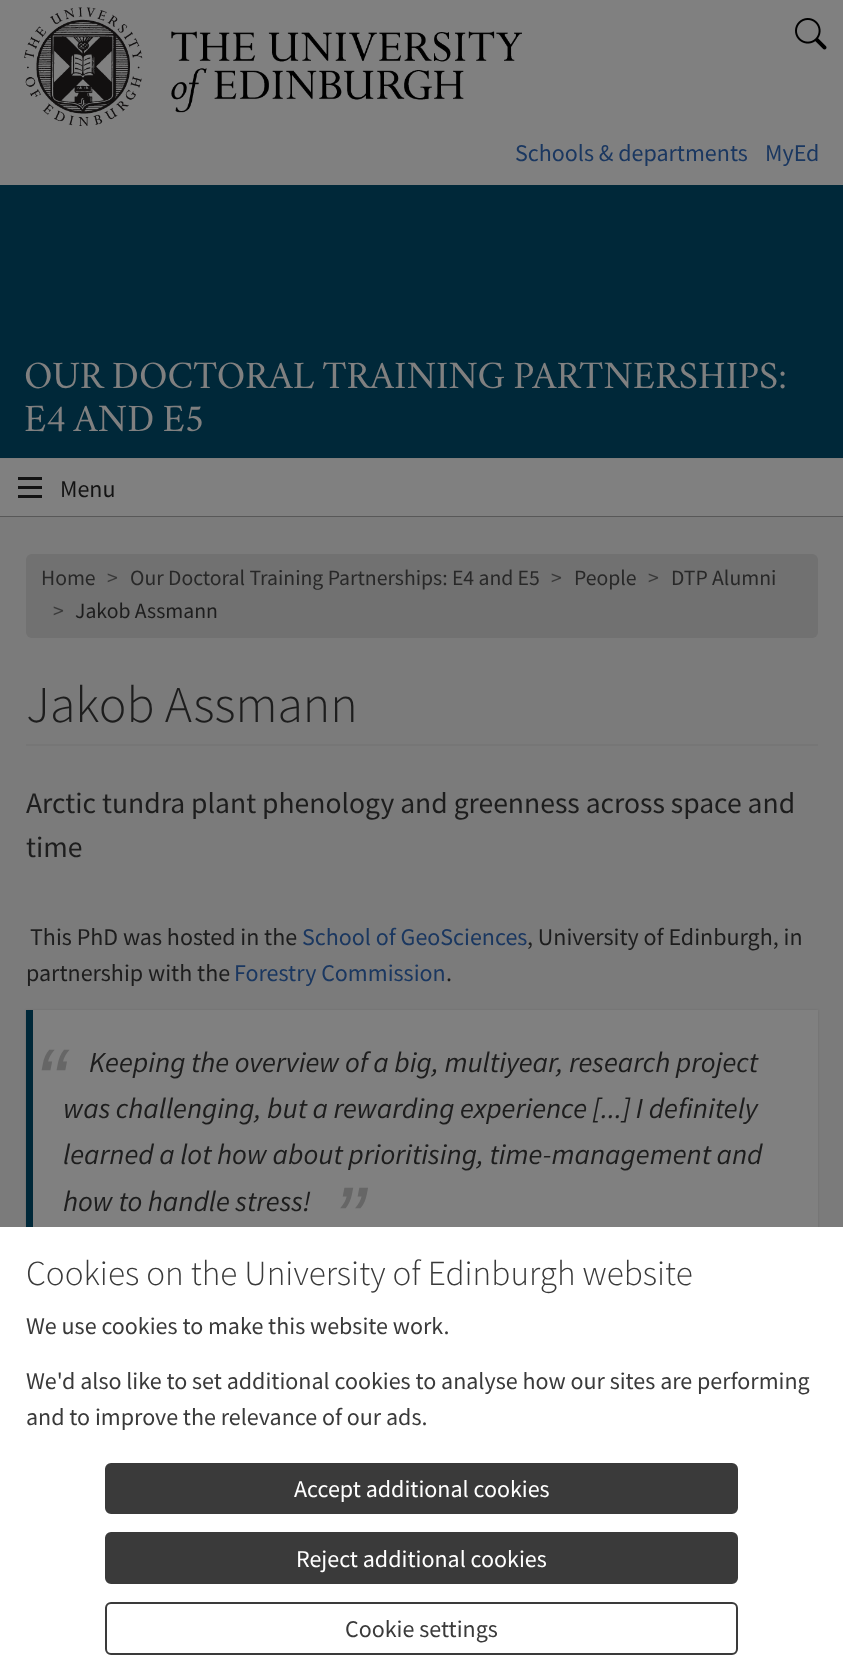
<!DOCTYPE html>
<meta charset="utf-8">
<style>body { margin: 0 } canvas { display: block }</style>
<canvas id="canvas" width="843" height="1664"></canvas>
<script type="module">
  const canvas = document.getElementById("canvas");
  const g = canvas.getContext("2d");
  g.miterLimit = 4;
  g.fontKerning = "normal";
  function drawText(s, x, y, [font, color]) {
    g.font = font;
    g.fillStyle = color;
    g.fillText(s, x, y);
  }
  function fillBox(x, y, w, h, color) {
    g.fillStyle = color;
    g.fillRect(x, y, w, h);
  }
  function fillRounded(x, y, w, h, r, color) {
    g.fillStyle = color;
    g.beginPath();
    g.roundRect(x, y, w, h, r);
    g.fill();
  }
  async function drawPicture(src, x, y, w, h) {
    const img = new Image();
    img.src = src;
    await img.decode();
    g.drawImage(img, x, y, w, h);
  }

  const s1 = ["24px Source Sans Pro", "#1A3760"];
  const s2 = ["39.1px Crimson", "#808080"];
  const s3 = ["24px Source Sans Pro", "#131313"];
  const s4 = ["21.7px Source Sans Pro", "#282828"];
  const s5 = ["21.7px Source Sans Pro", "#3A3A3A"];
  const s6 = ["21.7px Source Sans Pro", "#1D1D1D"];
  const s7 = ["300 51.75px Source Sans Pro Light", "#1D1D1D"];
  const s8 = ["29.6px Source Sans Pro", "#1D1D1D"];
  const s9 = ["24px Source Sans Pro", "#1D1D1D"];
  const s10 = ["italic 92px Liberation Sans", "#666666"];
  const s11 = ["italic 28.8px Source Sans Pro", "#1D1D1D"];
  const s12 = ["300 35.2px Source Sans Pro Light", "#3A3A3A"];
  const s13 = ["24px Source Sans Pro", "#3A3A3A"];
  const s14 = ["24px Source Sans Pro", "#FFFFFF"];

  fillBox(0, 0, 843, 1664, "#808080");
  await drawPicture("pic1.png", 24, 7, 498, 119);
  await drawPicture("pic2.png", 795, 18, 32, 32);
  drawText("Schools & departments", 515, 161, s1);
  drawText("MyEd", 765, 161, s1);
  fillBox(0, 185, 843, 273, "#002839");
  drawText("OUR DOCTORAL TRAINING PARTNERSHIPS:", 24, 388, s2);
  drawText("E4 AND E5", 24, 431, s2);
  fillBox(0, 458, 843, 1, "#7D7D7D");
  fillBox(0, 516, 843, 1, "#585858");
  fillBox(18, 486, 24, 3, "#131313");
  fillBox(18, 477, 24, 3, "#131313");
  fillBox(18, 495, 24, 3, "#131313");
  drawText("Menu", 60, 497, s3);
  fillBox(0, 517, 843, 710, "#7B7B7B");
  fillRounded(26, 554, 792, 84, 6, "#717171");
  drawText("Home", 41, 585, s4);
  drawText(">", 107, 585, s5);
  drawText("Our Doctoral Training Partnerships: E4 and E5", 130, 585, s4);
  drawText(">", 551, 585, s5);
  drawText("People", 574, 585, s4);
  drawText(">", 648, 585, s5);
  drawText("DTP Alumni", 671, 585, s4);
  drawText(">", 53, 618, s5);
  drawText("Jakob Assmann", 75, 618, s6);
  fillBox(26, 744, 792, 2, "#767676");
  drawText("Jakob Assmann", 26, 722, s7);
  drawText("Arctic tundra plant phenology and greenness across space and", 26, 813, s8);
  drawText("time", 26, 857, s8);
  drawText("This PhD was hosted in the", 30, 945, s9);
  drawText("School of GeoSciences", 302, 945, s1);
  drawText(", University of Edinburgh, in", 527, 945, s9);
  drawText("partnership with the", 26, 981, s9);
  drawText("Forestry Commission", 234, 981, s1);
  drawText(".", 446, 981, s9);
  g.fillStyle = "rgba(0, 0, 0, 0.1)";
  g.filter = "blur(1px)";
  g.beginPath();
  g.rect(26, 1010, 792, 244);
  g.fill();
  g.filter = "none";
  fillBox(33, 1010, 785, 217, "#808080");
  fillBox(26, 1010, 7, 217, "#002839");
  drawText("“", 35, 1113, s10);
  drawText("Keeping the overview of a big, multiyear, research project", 89, 1072, s11);
  drawText("was challenging, but a rewarding experience [...] I definitely", 63, 1118, s11);
  drawText("learned a lot how about prioritising, time-management and", 63, 1164, s11);
  drawText("how to handle stress!", 63, 1211, s11);
  drawText("”", 334, 1251, s10);
  fillBox(0, 1227, 843, 437, "#FFFFFF");
  drawText("Cookies on the University of Edinburgh website", 26, 1285, s12);
  drawText("We use cookies to make this website work.", 26, 1334, s13);
  drawText("We'd also like to set additional cookies to analyse how our sites are performing", 26, 1389, s13);
  drawText("and to improve the relevance of our ads.", 26, 1425, s13);
  g.beginPath();
  g.roundRect(106, 1464, 631, 49, 5);
  g.fill();
  g.strokeStyle = "#3A3A3A";
  g.lineWidth = 2;
  g.stroke();
  drawText("Accept additional cookies", 294, 1497, s14);
  g.fillStyle = "#3A3A3A";
  g.beginPath();
  g.roundRect(106, 1533, 631, 50, 5);
  g.fill();
  g.stroke();
  drawText("Reject additional cookies", 296, 1567, s14);
  g.beginPath();
  g.roundRect(106, 1603, 631, 51, 5);
  g.stroke();
  drawText("Cookie settings", 345, 1637, s13);
</script>
